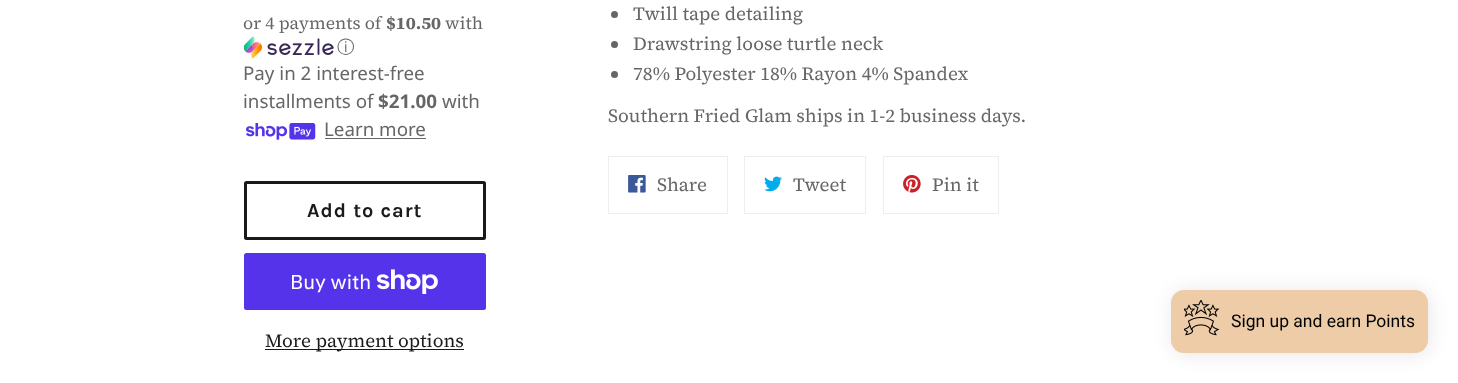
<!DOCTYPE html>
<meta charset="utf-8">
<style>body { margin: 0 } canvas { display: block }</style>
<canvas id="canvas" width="1458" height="383"></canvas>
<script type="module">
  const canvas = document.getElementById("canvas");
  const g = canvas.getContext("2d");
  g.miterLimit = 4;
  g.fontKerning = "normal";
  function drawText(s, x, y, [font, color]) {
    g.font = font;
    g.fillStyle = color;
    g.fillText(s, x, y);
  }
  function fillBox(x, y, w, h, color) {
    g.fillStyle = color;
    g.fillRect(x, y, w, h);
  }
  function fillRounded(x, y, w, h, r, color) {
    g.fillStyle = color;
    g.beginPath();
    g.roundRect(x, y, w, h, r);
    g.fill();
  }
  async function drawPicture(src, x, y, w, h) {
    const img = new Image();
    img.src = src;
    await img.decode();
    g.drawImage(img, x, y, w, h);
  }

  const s1 = ["17.5px 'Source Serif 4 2'", "#666666"];
  const s2 = ["bold 17.5px 'Source Serif 4'", "#666666"];
  const s3 = ["500 17.5px WenQuanYi Zen Hei", "#666666"];
  const s4 = ["18.75px Noto Sans", "#666666"];
  const s5 = ["bold 18.75px Noto Sans", "#666666"];
  const s6 = ["bold 20px Karla", "#1A1A1A"];
  const s7 = ["20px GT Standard", "#FFFFFF"];
  const s8 = ["18.75px 'Source Serif 4'", "#1A1A1A"];
  const s9 = ["18.75px 'Source Serif 4'", "#666666"];
  const s10 = ["17.5px Roboto", "#000000"];

  fillBox(0, 0, 1458, 383, "#FFFFFF");
  drawText("or 4 payments of", 243, 29, s1);
  drawText("$10.50", 386, 29, s2);
  drawText("with", 445, 29, s1);
  await drawPicture("pic1.png", 244, 36, 90, 23);
  drawText("ⓘ", 337, 53, s3);
  drawText("Pay in 2 interest-free", 243, 80, s4);
  drawText("installments of", 243, 108, s4);
  drawText("$21.00", 378, 108, s5);
  drawText("with", 442, 108, s4);
  await drawPicture("pic2.png", 246, 123, 70, 17);
  drawText("Learn more", 324, 136, s4);
  fillBox(325, 138, 101, 1, "#666666");
  g.beginPath();
  g.roundRect(245.5, 182.5, 239, 56, 1);
  g.strokeStyle = "#1A1A1A";
  g.lineWidth = 3;
  g.stroke();
  g.letterSpacing = "1px";
  drawText("Add to cart", 307, 217, s6);
  fillRounded(244, 253, 242, 57, 2.5, "#5433EB");
  g.letterSpacing = "0px";
  drawText("Buy with", 290, 289, s7);
  await drawPicture("pic3.png", 376, 269, 62, 25);
  fillBox(265, 349, 199, 1, "#1A1A1A");
  drawText("More payment options", 265, 347, s8);
  g.fillStyle = "#666666";
  g.beginPath();
  g.arc(614.5, 14.5, 3.5, 0, Math.PI * 2);
  g.fill();
  drawText("Twill tape detailing", 633, 20, s9);
  g.beginPath();
  g.arc(614.5, 44.5, 3.5, 0, Math.PI * 2);
  g.fill();
  drawText("Drawstring loose turtle neck", 633, 50, s9);
  g.beginPath();
  g.arc(614.5, 74.5, 3.5, 0, Math.PI * 2);
  g.fill();
  drawText("78% Polyester 18% Rayon 4% Spandex", 633, 80, s9);
  drawText("Southern Fried Glam ships in 1-2 business days.", 608, 122, s9);
  g.strokeStyle = "#EEEEEE";
  g.lineWidth = 1;
  g.strokeRect(608.5, 156.5, 119, 57);
  await drawPicture("pic4.png", 628, 175, 18, 18);
  drawText("Share", 657, 191, s9);
  g.strokeRect(744.5, 156.5, 121, 57);
  await drawPicture("pic5.png", 764, 176, 18, 16);
  drawText("Tweet", 793, 191, s9);
  g.strokeRect(883.5, 156.5, 115, 57);
  await drawPicture("pic6.png", 903, 175, 18, 18);
  drawText("Pin it", 932, 191, s9);
  g.fillStyle = "rgba(0, 0, 0, 0.1)";
  g.filter = "blur(9.5px)";
  g.beginPath();
  g.roundRect(1173, 291, 256, 63, 13);
  g.fill();
  g.filter = "none";
  fillRounded(1171, 290, 257, 63, 13, "#EDCCA7");
  await drawPicture("pic7.png", 1184, 300, 36, 36);
  drawText("Sign up and earn Points", 1231, 327, s10);
</script>
